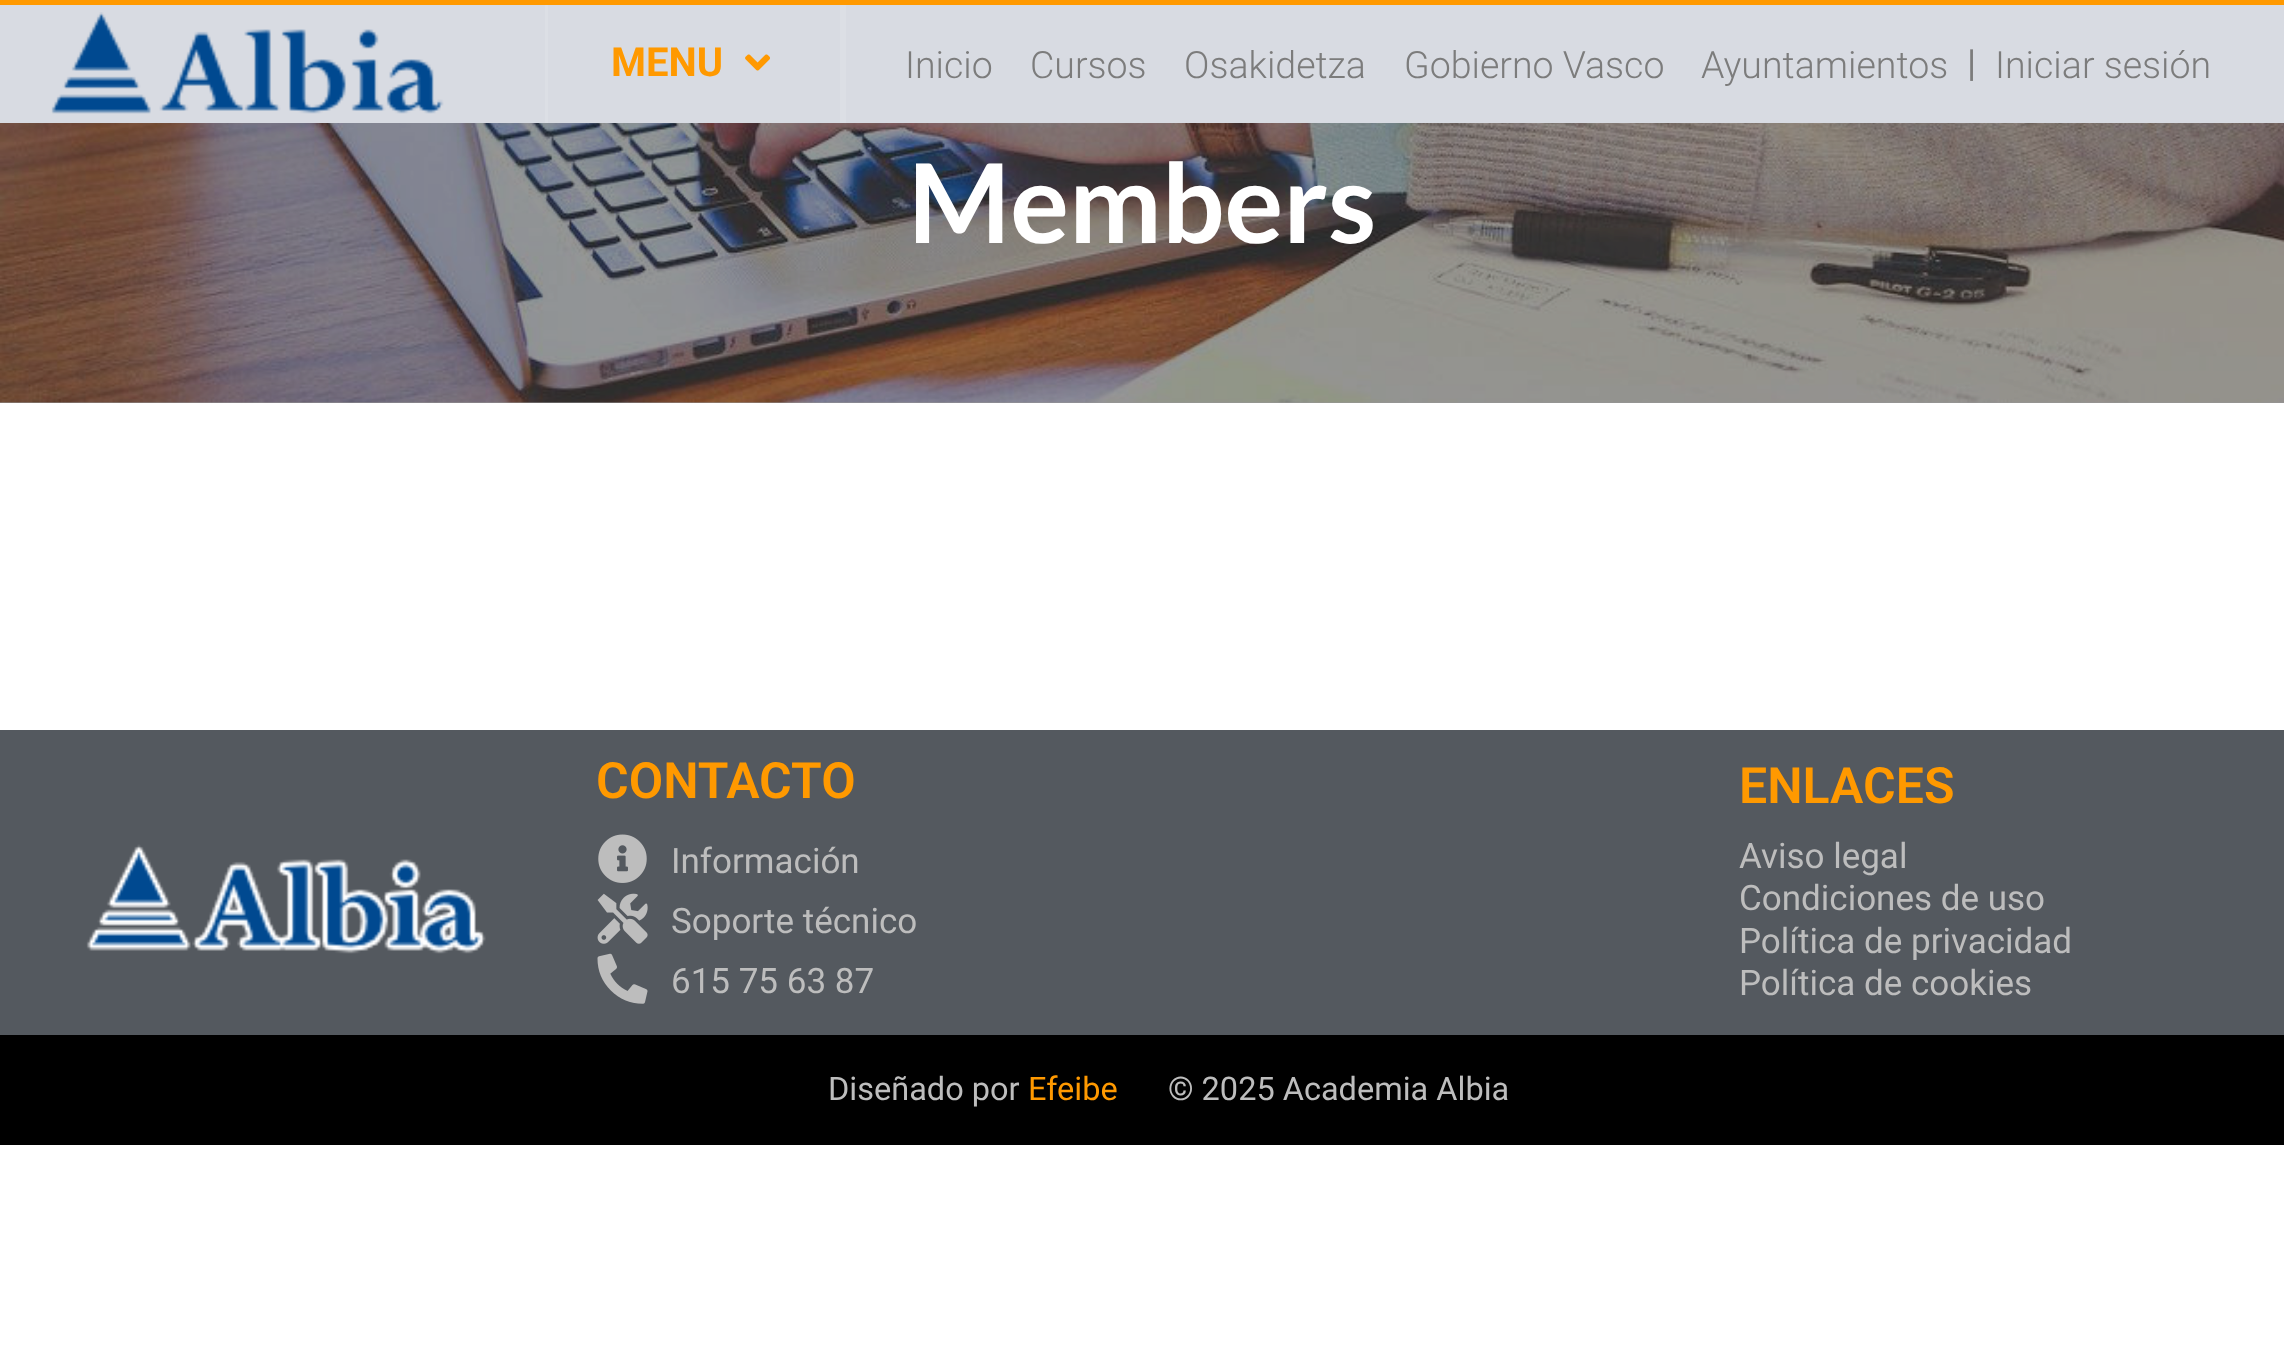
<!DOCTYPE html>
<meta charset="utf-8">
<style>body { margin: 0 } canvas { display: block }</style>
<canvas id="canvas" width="2284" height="1368"></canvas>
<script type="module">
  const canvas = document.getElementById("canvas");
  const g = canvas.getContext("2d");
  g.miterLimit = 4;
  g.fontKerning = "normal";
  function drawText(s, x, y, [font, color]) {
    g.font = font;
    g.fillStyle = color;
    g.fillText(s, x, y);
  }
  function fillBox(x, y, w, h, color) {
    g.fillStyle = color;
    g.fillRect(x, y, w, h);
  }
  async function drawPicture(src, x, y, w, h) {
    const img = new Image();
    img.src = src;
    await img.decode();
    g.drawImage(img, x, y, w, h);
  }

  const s1 = ["bold 40px Roboto", "#FF9900"];
  const s2 = ["300 37.5px Roboto", "#7C7C7C"];
  const s3 = ["37.5px Roboto", "#7C7C7C"];
  const s4 = ["bold 110px Lato", "#FFFFFF"];
  const s5 = ["600 50px Roboto", "#FF9900"];
  const s6 = ["35px Roboto", "#BDBDBD"];
  const s7 = ["32.5px Roboto", "#BDBDBD"];
  const s8 = ["32.5px Roboto", "#FF9900"];

  fillBox(0, 0, 2284, 1368, "#FFFFFF");
  fillBox(0, 402, 2284, 1, "#969696");
  fillBox(0, 5, 2284, 118, "#D8DBE2");
  fillBox(0, 0, 2284, 5, "#FF9900");
  fillBox(545, 5, 3, 118, "#DCDFE5");
  await drawPicture("pic1.png", 51, 12, 393, 102);
  drawText("MENU", 611, 76, s1);
  await drawPicture("pic2.png", 745, 54, 25, 17);
  fillBox(840, 5, 6, 118, "#DCDFE5");
  drawText("Inicio", 905, 78, s2);
  drawText("Cursos", 1030, 78, s2);
  drawText("Osakidetza", 1184, 78, s2);
  drawText("Gobierno Vasco", 1404, 78, s2);
  drawText("Ayuntamientos", 1701, 78, s2);
  drawText("|", 1967, 76, s3);
  drawText("Iniciar sesión", 1995, 78, s2);
  await drawPicture("pic3.png", 0, 123, 2284, 280);
  drawText("Members", 908, 243, s4);
  fillBox(0, 730, 2284, 305, "#54595F");
  await drawPicture("pic4.png", 86, 844, 400, 110);
  drawText("CONTACTO", 596, 798, s5);
  await drawPicture("pic5.png", 598, 834, 49, 49);
  drawText("Información", 671, 873, s6);
  await drawPicture("pic6.png", 597, 893, 51, 51);
  drawText("Soporte técnico", 671, 933, s6);
  await drawPicture("pic7.png", 597, 953, 51, 51);
  drawText("615 75 63 87", 671, 993, s6);
  drawText("ENLACES", 1739, 803, s5);
  drawText("Aviso legal", 1739, 868, s6);
  drawText("Condiciones de uso", 1739, 910, s6);
  drawText("Política de privacidad", 1739, 953, s6);
  drawText("Política de cookies", 1739, 995, s6);
  fillBox(0, 1035, 2284, 110, "#000000");
  drawText("Diseñado por", 828, 1100, s7);
  drawText("Efeibe", 1028, 1100, s8);
  drawText("© 2025 Academia Albia", 1168, 1100, s7);
</script>
